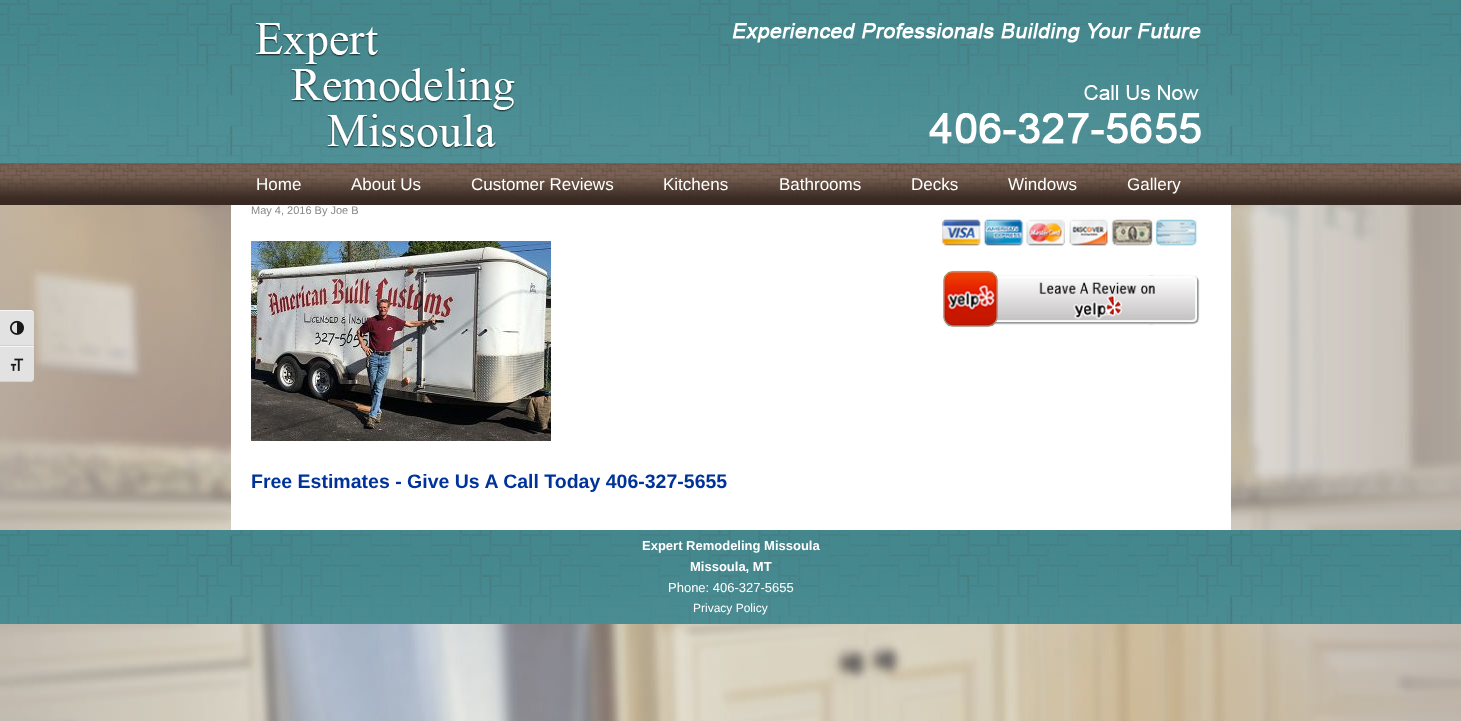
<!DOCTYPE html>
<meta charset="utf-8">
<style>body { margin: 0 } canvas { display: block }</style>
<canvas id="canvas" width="1461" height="721"></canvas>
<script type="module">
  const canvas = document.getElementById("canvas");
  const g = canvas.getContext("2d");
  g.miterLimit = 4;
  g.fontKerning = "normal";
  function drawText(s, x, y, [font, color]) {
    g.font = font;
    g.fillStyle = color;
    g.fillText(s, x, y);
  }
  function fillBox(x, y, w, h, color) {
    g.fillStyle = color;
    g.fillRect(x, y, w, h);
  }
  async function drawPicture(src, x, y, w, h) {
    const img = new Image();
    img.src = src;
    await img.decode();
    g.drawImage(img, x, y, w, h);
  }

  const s1 = ["17px Liberation Sans", "#FFFFFF"];
  const s2 = ["11px Liberation Sans", "#888888"];
  const s3 = ["bold 19.5px Liberation Sans", "#003399"];
  const s4 = ["bold 13px Liberation Sans", "#FFFFFF"];
  const s5 = ["13px Liberation Sans", "#FFFFFF"];
  const s6 = ["12px Liberation Sans", "#FFFFFF"];

  fillBox(0, 0, 1461, 721, "#FFFFFF");
  await drawPicture("pic1.png", 0, 205, 1461, 516);
  await drawPicture("pic2.png", 0, 0, 1461, 205);
  await drawPicture("pic3.png", 255, 23, 946, 126);
  drawText("Home", 256, 190, s1);
  drawText("About Us", 351, 190, s1);
  drawText("Customer Reviews", 471, 190, s1);
  drawText("Kitchens", 663, 190, s1);
  drawText("Bathrooms", 779, 190, s1);
  drawText("Decks", 911, 190, s1);
  drawText("Windows", 1008, 190, s1);
  drawText("Gallery", 1127, 190, s1);
  g.fillStyle = "#E2E2E2";
  g.beginPath();
  g.roundRect(0, 310, 34, 36, [0, 4, 0, 0]);
  g.fill();
  g.fillStyle = "#F5F5F5";
  g.beginPath();
  g.moveTo(0, 310);
  g.lineTo(0, 311);
  g.lineTo(30, 311);
  g.bezierCurveTo(32, 311, 34, 312.5, 34, 314);
  g.bezierCurveTo(34, 312, 32, 310, 30, 310);
  g.closePath();
  g.fill();
  fillBox(0, 345, 34, 1, "#D2D2D2");
  await drawPicture("pic4.png", 10, 320, 14, 15);
  g.fillStyle = "#E2E2E2";
  g.beginPath();
  g.roundRect(0, 346, 34, 36, [0, 0, 4, 0]);
  g.fill();
  fillBox(0, 346, 34, 1, "#F5F5F5");
  g.fillStyle = "#D2D2D2";
  g.beginPath();
  g.moveTo(0, 381);
  g.lineTo(0, 382);
  g.lineTo(30, 382);
  g.bezierCurveTo(32, 382, 34, 380, 34, 378);
  g.bezierCurveTo(34, 379.5, 32, 381, 30, 381);
  g.closePath();
  g.fill();
  await drawPicture("pic5.png", 10, 358, 14, 13);
  fillBox(231, 205, 1000, 325, "#FFFFFF");
  drawText("May 4, 2016 By Joe B", 251, 214, s2);
  await drawPicture("pic6.png", 251, 241, 300, 200);
  drawText("Free Estimates - Give Us A Call Today 406-327-5655", 251, 488, s3);
  await drawPicture("pic7.png", 941, 215, 257, 31);
  await drawPicture("pic8.png", 943, 270, 257, 58);
  await drawPicture("pic9.png", 0, 530, 1461, 94);
  drawText("Expert Remodeling Missoula", 642, 550, s4);
  drawText("Missoula, MT", 690, 571, s4);
  drawText("Phone: 406-327-5655", 668, 592, s5);
  drawText("Privacy Policy", 693, 612, s6);
</script>
